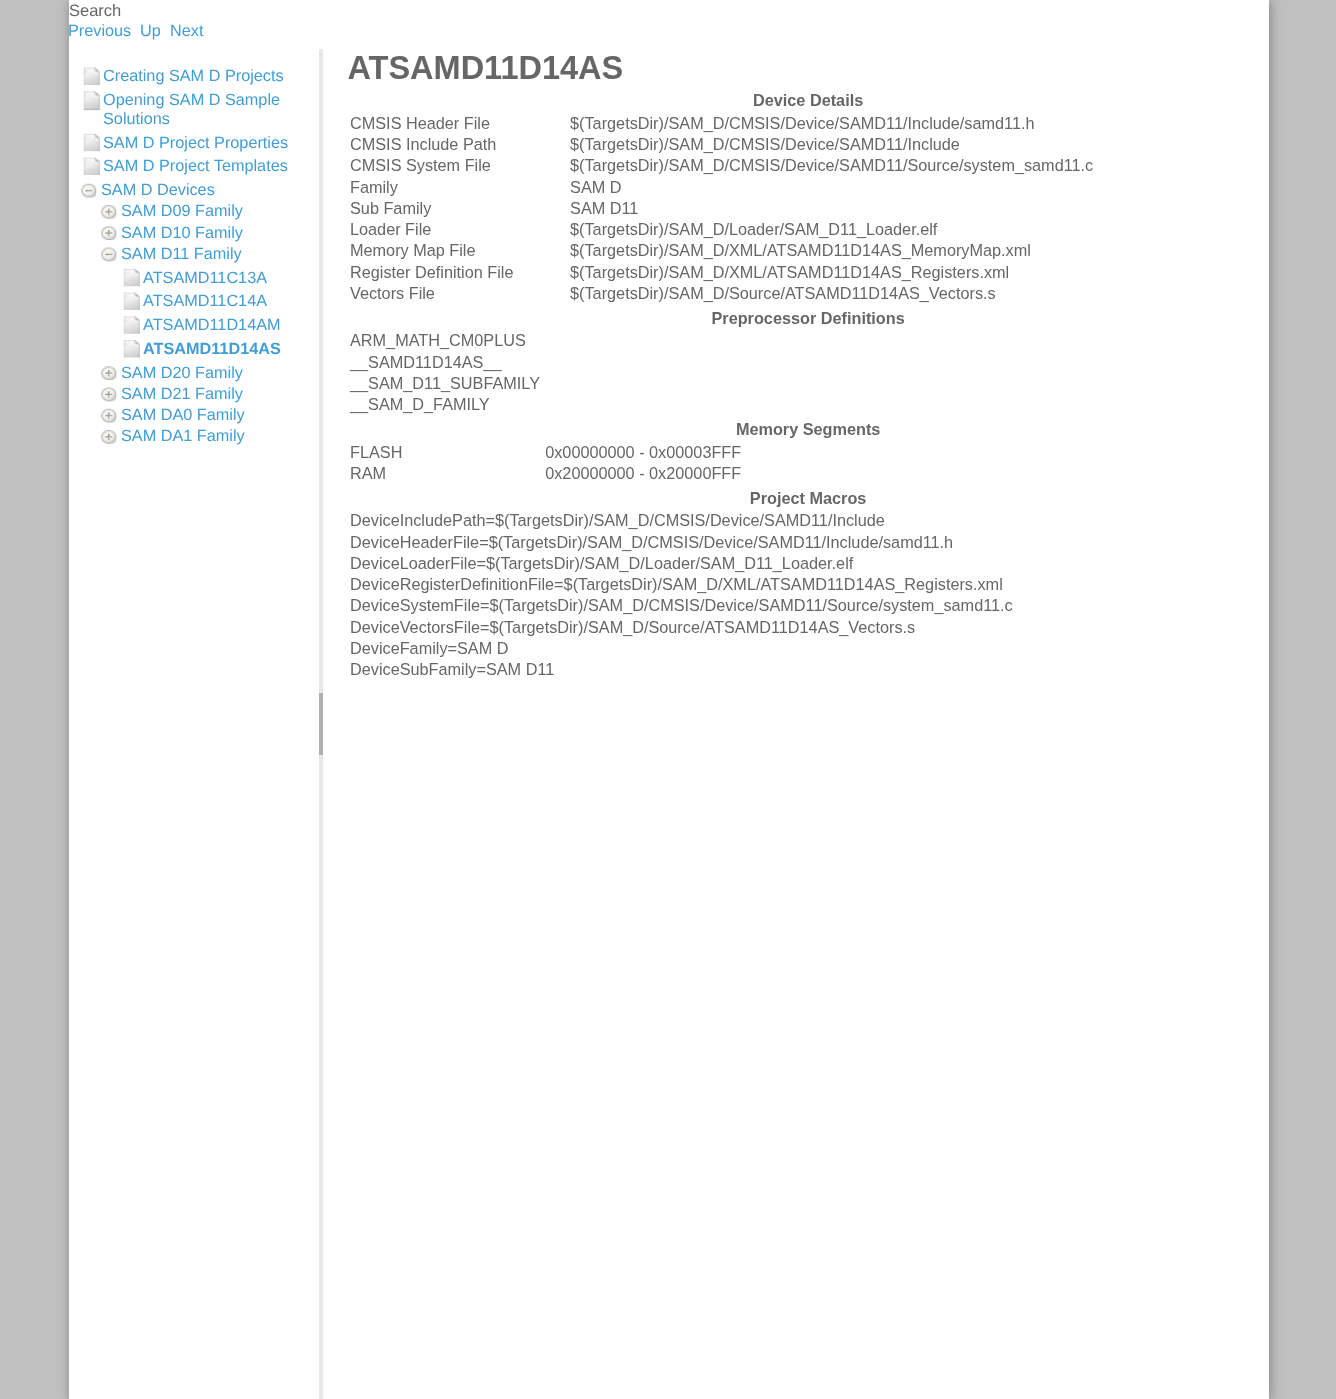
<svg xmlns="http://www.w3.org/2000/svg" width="1336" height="1399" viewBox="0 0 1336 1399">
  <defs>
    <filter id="blur1" x="-50%" y="-200%" width="200%" height="500%"><feGaussianBlur stdDeviation="6"/></filter>
  </defs>
  <rect width="100%" height="100%" fill="#c0c0c0"/>
  <rect x="70" y="1" width="1200" height="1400" fill="#808080" filter="url(#blur1)"/>
  <rect x="69" y="0" width="1200" height="1399" fill="#ffffff"/>
  <text x="69" y="16" font-family="Liberation Sans" font-size="16.5" fill="#666666">Search</text>
  <text x="68" y="36" font-family="Liberation Sans" font-size="16.25" fill="#419dd5">Previous</text>
  <text x="140" y="36" font-family="Liberation Sans" font-size="16.25" fill="#419dd5">Up</text>
  <text x="170" y="36" font-family="Liberation Sans" font-size="16.25" fill="#419dd5">Next</text>
  <image x="83" y="67" width="17" height="18" href="img1.png"/>
  <text x="103" y="81" font-family="Liberation Sans" font-size="16.25" fill="#419dd5">Creating SAM D Projects</text>
  <image x="83" y="91" width="18" height="20" href="img2.png"/>
  <text x="103" y="105" font-family="Liberation Sans" font-size="16.25" fill="#419dd5">Opening SAM D Sample</text>
  <text x="103" y="124" font-family="Liberation Sans" font-size="16.25" fill="#419dd5">Solutions</text>
  <image x="83" y="133" width="17" height="19" href="img3.png"/>
  <text x="103" y="148" font-family="Liberation Sans" font-size="16.25" fill="#419dd5">SAM D Project Properties</text>
  <image x="83" y="157" width="17" height="18" href="img1.png"/>
  <text x="103" y="171" font-family="Liberation Sans" font-size="16.25" fill="#419dd5">SAM D Project Templates</text>
  <image x="81" y="183" width="16" height="15" href="img4.png"/>
  <text x="101" y="195" font-family="Liberation Sans" font-size="16.25" fill="#419dd5">SAM D Devices</text>
  <image x="101" y="205" width="16" height="14" href="img5.png"/>
  <text x="121" y="216" font-family="Liberation Sans" font-size="16.25" fill="#419dd5">SAM D09 Family</text>
  <image x="101" y="226" width="16" height="14" href="img6.png"/>
  <text x="121" y="238" font-family="Liberation Sans" font-size="16.25" fill="#419dd5">SAM D10 Family</text>
  <image x="101" y="247" width="16" height="15" href="img7.png"/>
  <text x="121" y="259" font-family="Liberation Sans" font-size="16.25" fill="#419dd5">SAM D11 Family</text>
  <image x="123" y="268" width="17" height="19" href="img3.png"/>
  <text x="143" y="283" font-family="Liberation Sans" font-size="16.25" fill="#419dd5">ATSAMD11C13A</text>
  <image x="123" y="292" width="17" height="18" href="img8.png"/>
  <text x="143" y="306" font-family="Liberation Sans" font-size="16.25" fill="#419dd5">ATSAMD11C14A</text>
  <image x="123" y="316" width="17" height="18" href="img9.png"/>
  <text x="143" y="330" font-family="Liberation Sans" font-size="16.25" fill="#419dd5">ATSAMD11D14AM</text>
  <image x="123" y="340" width="17" height="18" href="img10.png"/>
  <text x="143" y="354" font-family="Liberation Sans" font-size="16.25" font-weight="bold" fill="#419dd5">ATSAMD11D14AS</text>
  <image x="101" y="366" width="16" height="14" href="img6.png"/>
  <text x="121" y="378" font-family="Liberation Sans" font-size="16.25" fill="#419dd5">SAM D20 Family</text>
  <image x="101" y="387" width="16" height="15" href="img11.png"/>
  <text x="121" y="399" font-family="Liberation Sans" font-size="16.25" fill="#419dd5">SAM D21 Family</text>
  <image x="101" y="408" width="16" height="15" href="img12.png"/>
  <text x="121" y="420" font-family="Liberation Sans" font-size="16.25" fill="#419dd5">SAM DA0 Family</text>
  <image x="101" y="430" width="16" height="14" href="img5.png"/>
  <text x="121" y="441" font-family="Liberation Sans" font-size="16.25" fill="#419dd5">SAM DA1 Family</text>
  <rect x="319" y="49" width="4" height="1350" fill="#e8e8e8"/>
  <rect x="319" y="693" width="4" height="62" fill="#b0b0b0"/>
  <image x="348" y="56" width="745" height="622" href="img13.png"/>
</svg>
